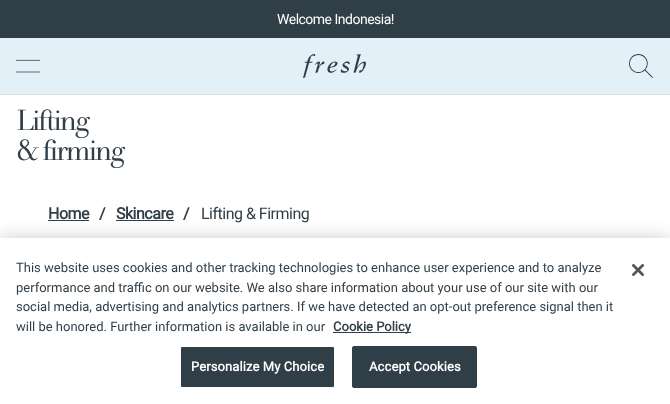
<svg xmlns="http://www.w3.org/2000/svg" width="670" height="404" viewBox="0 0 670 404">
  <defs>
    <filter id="blur1" x="-50%" y="-200%" width="200%" height="500%"><feGaussianBlur stdDeviation="9"/></filter>
  </defs>
  <rect width="100%" height="100%" fill="#ffffff"/>
  <rect x="0" y="0" width="670" height="38" fill="#303e48"/>
  <text x="277" y="24" font-family="Roboto" font-size="14" letter-spacing="-0.5" fill="#ffffff">Welcome Indonesia!</text>
  <rect x="0" y="94" width="670" height="1" fill="#dddddd"/>
  <rect x="0" y="38" width="670" height="56" fill="#e3f0f8"/>
  <image x="16" y="59" width="24" height="14" href="img1.png"/>
  <image x="303" y="54" width="63" height="24" href="img2.png"/>
  <image x="629" y="54" width="24" height="24" href="img3.png"/>
  <text x="16" y="130" font-family="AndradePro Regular" font-size="30" letter-spacing="-2" fill="#303e48">Lifting</text>
  <text x="16" y="160" font-family="AndradePro Regular" font-size="30" letter-spacing="-2" fill="#303e48">&amp; firming</text>
  <text x="48" y="219" font-family="Roboto" font-size="16" font-weight="bold" letter-spacing="-0.5" fill="#303e48">Home</text>
  <rect x="48" y="220" width="41" height="1" fill="#303e48"/>
  <text x="99" y="219" font-family="Roboto" font-size="16" font-weight="bold" letter-spacing="-0.5" fill="#303e48">/</text>
  <text x="116" y="219" font-family="Roboto" font-size="16" font-weight="bold" letter-spacing="-0.5" fill="#303e48">Skincare</text>
  <rect x="116" y="220" width="58" height="1" fill="#303e48"/>
  <text x="183" y="219" font-family="Roboto" font-size="16" font-weight="bold" letter-spacing="-0.5" fill="#303e48">/</text>
  <text x="201" y="219" font-family="Roboto" font-size="16" letter-spacing="-0.5" fill="#303e48">Lifting &amp; Firming</text>
  <rect x="0" y="238" width="670" height="166" fill="#000000" fill-opacity="0.2" filter="url(#blur1)"/>
  <rect x="0" y="238" width="670" height="166" fill="#ffffff"/>
  <text x="16" y="272" font-family="Roboto" font-size="13" fill="#303e48">This website uses cookies and other tracking technologies to enhance user experience and to analyze</text>
  <text x="16" y="292" font-family="Roboto" font-size="13" fill="#303e48">performance and traffic on our website. We also share information about your use of our site with our</text>
  <text x="16" y="311" font-family="Roboto" font-size="13" fill="#303e48">social media, advertising and analytics partners. If we have detected an opt-out preference signal then it</text>
  <text x="16" y="331" font-family="Roboto" font-size="13" fill="#303e48">will be honored. Further information is available in our</text>
  <rect x="333" y="332" width="78" height="1" fill="#303e48"/>
  <text x="333" y="331" font-family="Roboto" font-size="13" font-weight="bold" fill="#303e48">Cookie Policy</text>
  <rect x="180.5" y="346.5" width="154" height="41" rx="1.5" fill="#303e48" stroke="#ffffff"/>
  <text x="191" y="371" font-family="Roboto" font-size="13" font-weight="bold" letter-spacing="0.1" fill="#ffffff">Personalize My Choice</text>
  <rect x="352.5" y="346.5" width="124" height="41" rx="1.5" fill="#303e48" stroke="#303e48"/>
  <text x="369" y="371" font-family="Roboto" font-size="13" font-weight="bold" letter-spacing="0.1" fill="#ffffff">Accept Cookies</text>
  <image x="632" y="264" width="12" height="12" href="img4.png"/>
</svg>
